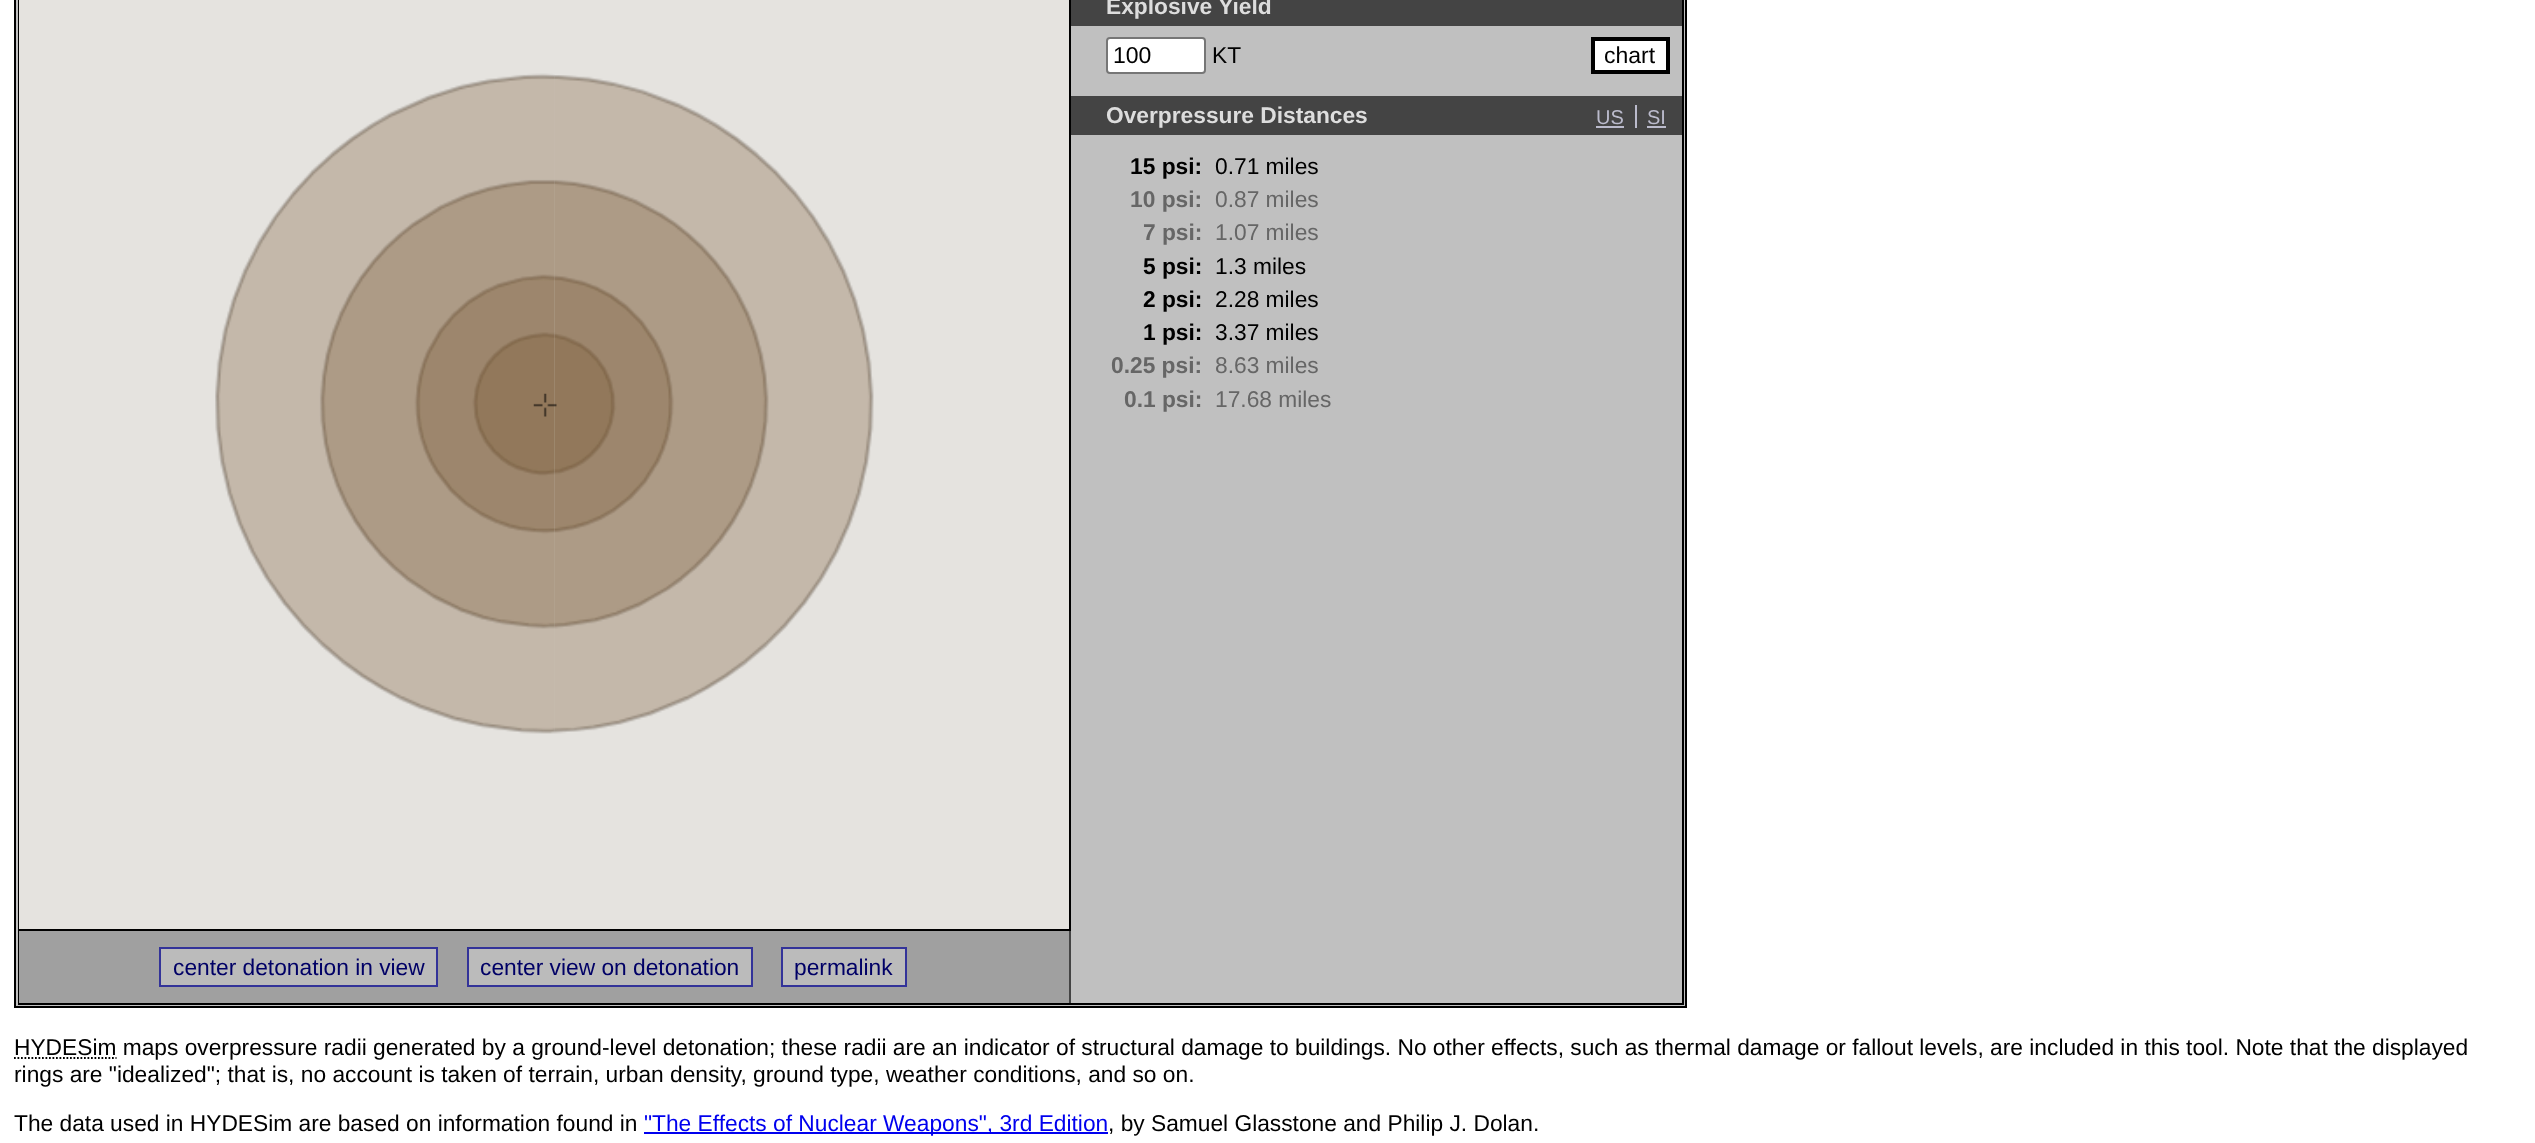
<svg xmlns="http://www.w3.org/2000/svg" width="2535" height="1143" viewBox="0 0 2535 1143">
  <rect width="100%" height="100%" fill="#ffffff"/>
  <rect x="15" y="-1" width="1671" height="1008" fill="#c0c0c0" stroke="#000000" stroke-width="2"/>
  <rect x="19" y="-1" width="1664" height="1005" fill="none" stroke="#000000" stroke-width="2"/>
  <rect x="1069" y="0" width="2" height="931" fill="#000000"/>
  <rect x="19" y="929" width="1052" height="2" fill="#000000"/>
  <rect x="19" y="0" width="1050" height="929" fill="#e5e3df"/>
  <image x="215" y="73" width="340" height="333" href="img1.png"/>
  <image x="554" y="75" width="320" height="331" href="img2.png"/>
  <image x="554" y="406" width="320" height="328" href="img4.png"/>
  <image x="215" y="406" width="340" height="328" href="img3.png"/>
  <image x="533" y="393" width="24" height="24" href="img5.png"/>
  <rect x="1071" y="0" width="611" height="26" fill="#444444"/>
  <text x="1106" y="14" font-family="Liberation Sans" font-size="22.75" font-weight="bold" fill="#dddddd">Explosive Yield</text>
  <rect x="1107" y="38" width="98" height="35" rx="3" fill="#ffffff" stroke="#767676" stroke-width="2"/>
  <text x="1113" y="63" font-family="Liberation Sans" font-size="23" fill="#000000">100</text>
  <text x="1212" y="63" font-family="Liberation Sans" font-size="22.75" fill="#000000">KT</text>
  <rect x="1593" y="39" width="75" height="33" fill="#ffffff" stroke="#000000" stroke-width="4"/>
  <text x="1604" y="63" font-family="Liberation Sans" font-size="23" fill="#000000">chart</text>
  <rect x="1071" y="96" width="611" height="39" fill="#444444"/>
  <text x="1106" y="123" font-family="Liberation Sans" font-size="22.75" font-weight="bold" fill="#dddddd">Overpressure Distances</text>
  <text x="1596" y="124" font-family="Liberation Sans" font-size="20" fill="#bbbbcc">US</text>
  <rect x="1635" y="105" width="2" height="23" fill="#bbbbcc"/>
  <rect x="1596" y="126" width="28" height="2" fill="#bbbbcc"/>
  <text x="1647" y="124" font-family="Liberation Sans" font-size="20" fill="#bbbbcc">SI</text>
  <rect x="1647" y="126" width="19" height="2" fill="#bbbbcc"/>
  <text x="1130" y="174" font-family="Liberation Sans" font-size="22.75" font-weight="bold" fill="#000000">15 psi:</text>
  <text x="1215" y="174" font-family="Liberation Sans" font-size="22.75" fill="#000000">0.71 miles</text>
  <text x="1130" y="207" font-family="Liberation Sans" font-size="22.75" font-weight="bold" fill="#666666">10 psi:</text>
  <text x="1215" y="207" font-family="Liberation Sans" font-size="22.75" fill="#666666">0.87 miles</text>
  <text x="1143" y="240" font-family="Liberation Sans" font-size="22.75" font-weight="bold" fill="#666666">7 psi:</text>
  <text x="1215" y="240" font-family="Liberation Sans" font-size="22.75" fill="#666666">1.07 miles</text>
  <text x="1143" y="274" font-family="Liberation Sans" font-size="22.75" font-weight="bold" fill="#000000">5 psi:</text>
  <text x="1215" y="274" font-family="Liberation Sans" font-size="22.75" fill="#000000">1.3 miles</text>
  <text x="1143" y="307" font-family="Liberation Sans" font-size="22.75" font-weight="bold" fill="#000000">2 psi:</text>
  <text x="1215" y="307" font-family="Liberation Sans" font-size="22.75" fill="#000000">2.28 miles</text>
  <text x="1143" y="340" font-family="Liberation Sans" font-size="22.75" font-weight="bold" fill="#000000">1 psi:</text>
  <text x="1215" y="340" font-family="Liberation Sans" font-size="22.75" fill="#000000">3.37 miles</text>
  <text x="1111" y="373" font-family="Liberation Sans" font-size="22.75" font-weight="bold" fill="#666666">0.25 psi:</text>
  <text x="1215" y="373" font-family="Liberation Sans" font-size="22.75" fill="#666666">8.63 miles</text>
  <text x="1124" y="407" font-family="Liberation Sans" font-size="22.75" font-weight="bold" fill="#666666">0.1 psi:</text>
  <text x="1215" y="407" font-family="Liberation Sans" font-size="22.75" fill="#666666">17.68 miles</text>
  <rect x="19" y="931" width="1050" height="72" fill="#a0a0a0"/>
  <rect x="1069" y="931" width="2" height="72" fill="#444444"/>
  <rect x="160" y="948" width="277" height="38" fill="#bbbbbb" stroke="#333399" stroke-width="2"/>
  <text x="173" y="975" font-family="Liberation Sans" font-size="22.75" fill="#000066">center detonation in view</text>
  <rect x="468" y="948" width="284" height="38" fill="#bbbbbb" stroke="#333399" stroke-width="2"/>
  <text x="480" y="975" font-family="Liberation Sans" font-size="22.75" fill="#000066">center view on detonation</text>
  <rect x="782" y="948" width="124" height="38" fill="#bbbbbb" stroke="#333399" stroke-width="2"/>
  <text x="794" y="975" font-family="Liberation Sans" font-size="22.75" fill="#000066">permalink</text>
  <path d="M14 1058H116.5" fill="none" stroke="#000000" stroke-width="1.8" stroke-dasharray="1.75 1.75"/>
  <text x="14" y="1055" font-family="Liberation Sans" font-size="22.75" fill="#000000">HYDESim maps overpressure radii generated by a ground-level detonation; these radii are an indicator of structural damage to buildings. No other effects, such as thermal damage or fallout levels, are included in this tool. Note that the displayed</text>
  <text x="14" y="1082" font-family="Liberation Sans" font-size="22.75" fill="#000000">rings are "idealized"; that is, no account is taken of terrain, urban density, ground type, weather conditions, and so on.</text>
  <text x="14" y="1131" font-family="Liberation Sans" font-size="22.75" fill="#000000">The data used in HYDESim are based on information found in</text>
  <rect x="644" y="1132" width="464" height="2" fill="#0000ee"/>
  <text x="644" y="1131" font-family="Liberation Sans" font-size="22.75" fill="#0000ee">"The Effects of Nuclear Weapons", 3rd Edition</text>
  <text x="1108" y="1131" font-family="Liberation Sans" font-size="22.75" fill="#000000">, by Samuel Glasstone and Philip J. Dolan.</text>
</svg>
